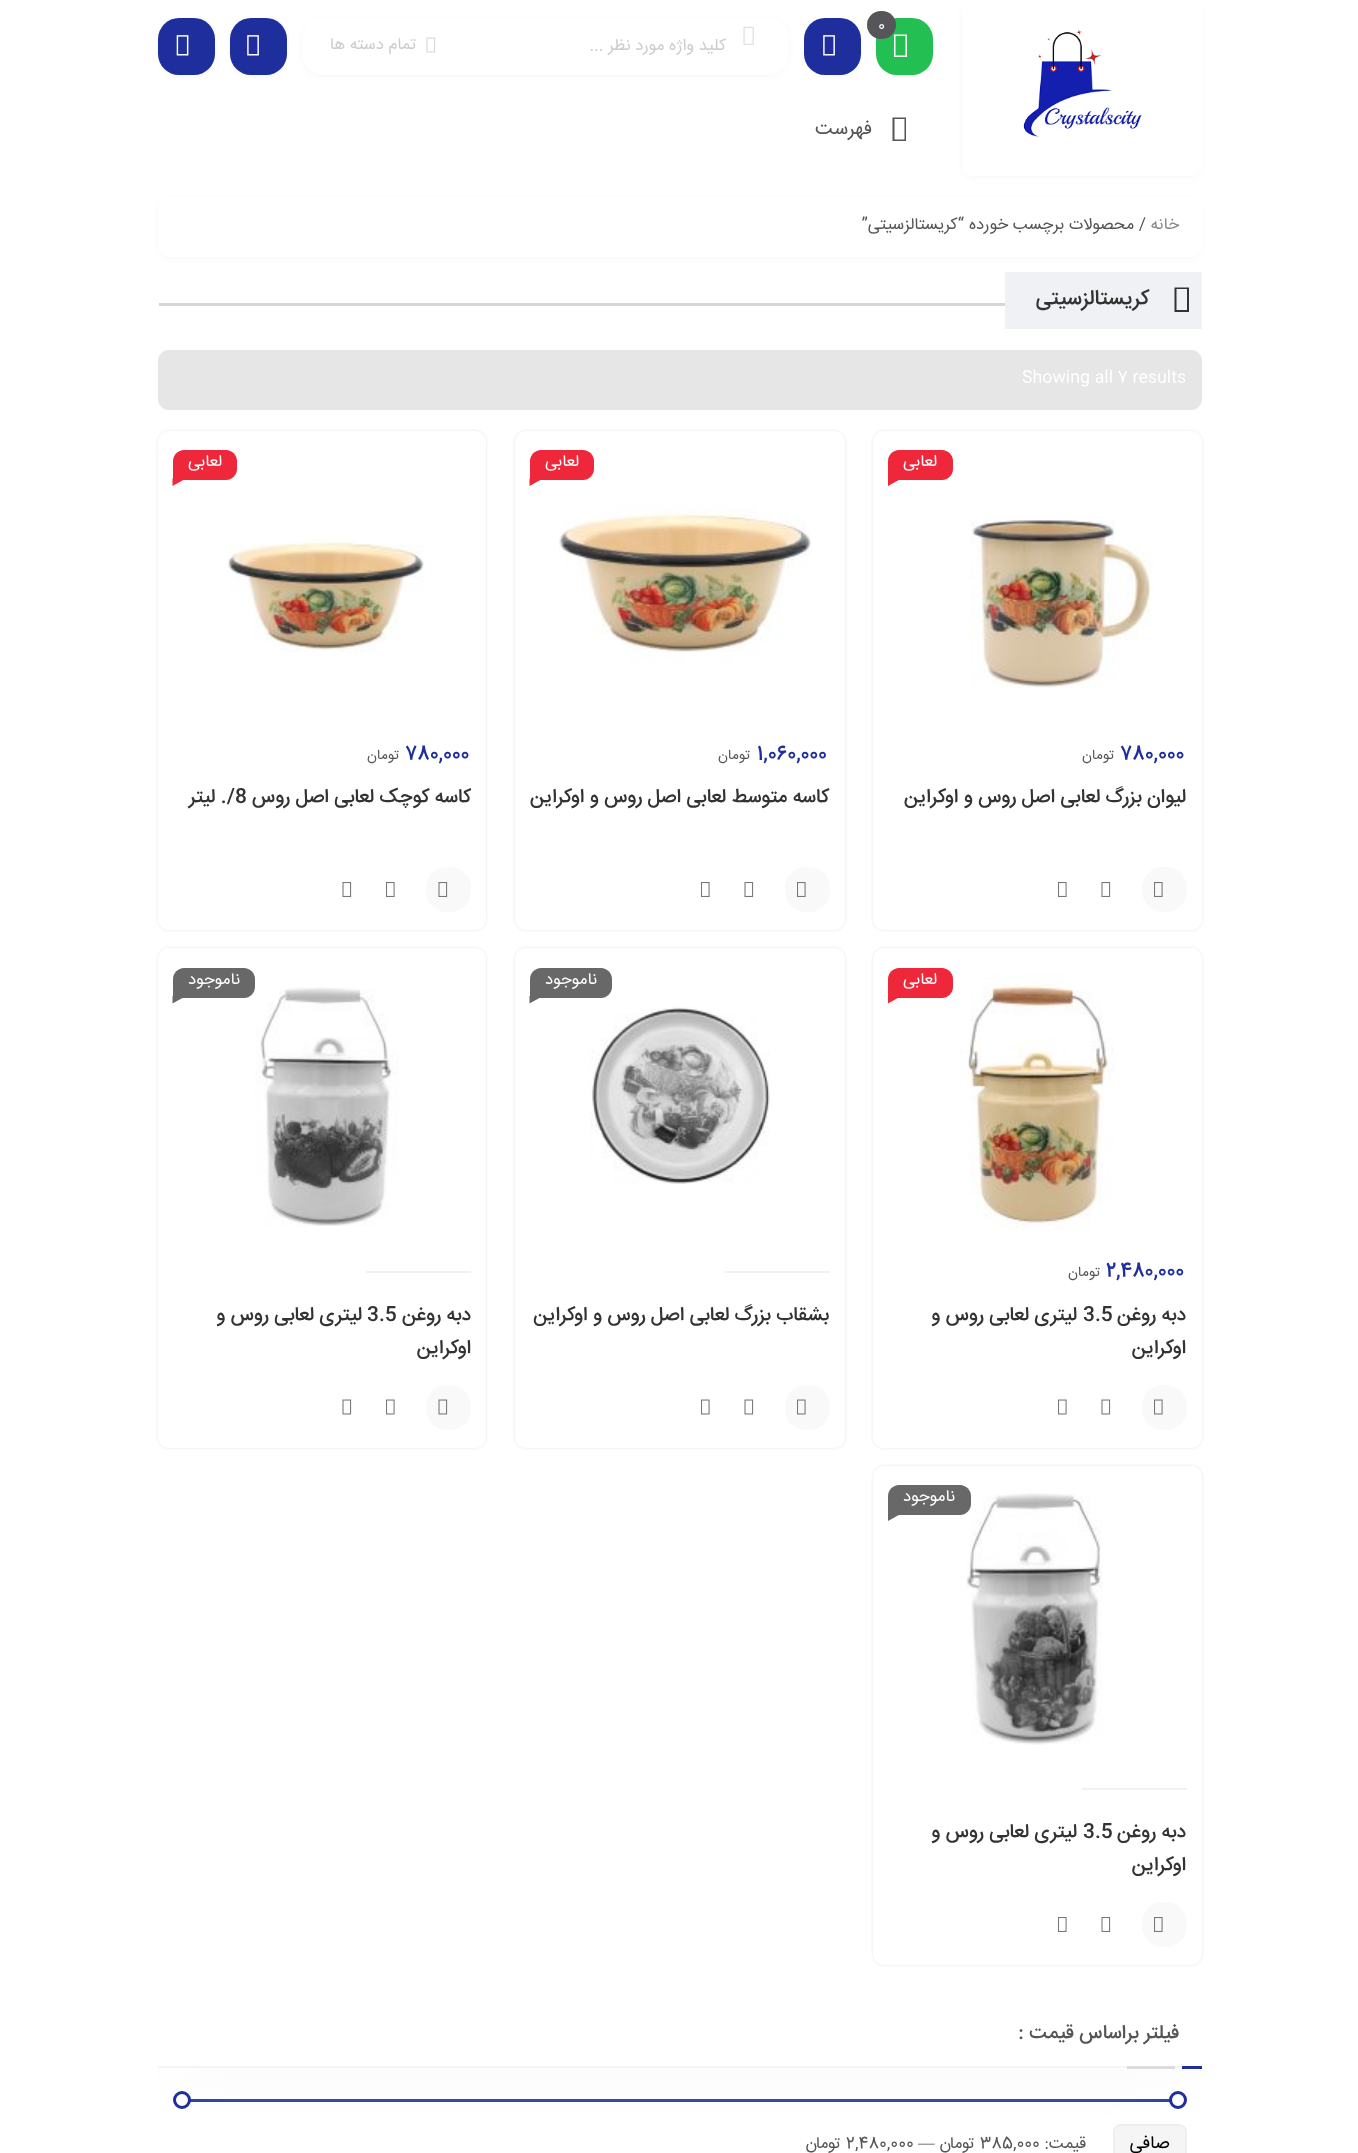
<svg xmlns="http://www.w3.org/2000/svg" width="1358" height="2153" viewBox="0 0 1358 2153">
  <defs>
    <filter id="blur1" x="-50%" y="-200%" width="200%" height="500%"><feGaussianBlur stdDeviation="5"/></filter>
    <filter id="blur2" x="-50%" y="-200%" width="200%" height="500%"><feGaussianBlur stdDeviation="1.5"/></filter>
    <clipPath id="clip1"><rect x="173" y="782" width="298" height="63"/></clipPath>
    <clipPath id="clip2"><rect x="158" y="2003" width="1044" height="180" rx="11"/></clipPath>
    <clipPath id="clip3"><path d="M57 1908H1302V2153H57ZM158 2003H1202V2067H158Z" clip-rule="evenodd"/></clipPath>
    <filter id="blur3" x="-50%" y="-200%" width="200%" height="500%"><feGaussianBlur stdDeviation="37.5"/></filter>
  </defs>
  <rect width="100%" height="100%" fill="#ffffff"/>
  <rect x="966" y="6" width="231" height="167" rx="6" fill="#000000" fill-opacity="0.1" filter="url(#blur1)"/>
  <path d="M962 0H1202V165C1202 171 1197 176 1191 176H973C967 176 962 171 962 165Z" fill="#ffffff"/>
  <image x="1023" y="29" width="119" height="108" href="img1.png"/>
  <rect x="881" y="24" width="48" height="48" rx="17" fill="#000000" fill-opacity="0.1" filter="url(#blur1)"/>
  <rect x="876" y="18" width="57" height="57" rx="21" fill="#23bf53"/>
  <path d="M894 57V34.5H907V57ZM895.5 55.5H905.5V36H895.5Z" fill="#ffffff"/>
  <rect x="809" y="24" width="48" height="48" rx="17" fill="#000000" fill-opacity="0.1" filter="url(#blur1)"/>
  <rect x="867" y="11" width="29" height="28" rx="14" fill="#55555a"/>
  <text x="878" y="30" font-family="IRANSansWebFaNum" font-size="15" fill="#ffffff">0</text>
  <rect x="804" y="18" width="57" height="57" rx="21" fill="#1e2f9d"/>
  <image x="823" y="35" width="12" height="21" href="img2.png"/>
  <rect x="234" y="24" width="48" height="48" rx="17" fill="#000000" fill-opacity="0.1" filter="url(#blur1)"/>
  <rect x="230" y="18" width="57" height="57" rx="21" fill="#1e2f9d"/>
  <image x="247" y="35" width="12" height="21" href="img2.png"/>
  <rect x="162" y="24" width="48" height="48" rx="17" fill="#000000" fill-opacity="0.1" filter="url(#blur1)"/>
  <rect x="158" y="18" width="57" height="57" rx="21" fill="#1e2f9d"/>
  <image x="176" y="35" width="13" height="21" href="img3.png"/>
  <rect x="306" y="24" width="479" height="48" rx="17" fill="#000000" fill-opacity="0.1" filter="url(#blur1)"/>
  <rect x="302" y="18" width="487" height="57" rx="21" fill="#ffffff"/>
  <image x="743" y="26" width="11" height="19" href="img4.png"/>
  <text x="726" y="50" font-family="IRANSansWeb" font-size="16.5" direction="rtl" fill="#cbccd2">کلید واژه مورد نظر ...</text>
  <image x="426" y="37" width="10" height="16" href="img5.png"/>
  <text x="416" y="49" font-family="IRANSansWeb" font-size="16.5" direction="rtl" fill="#cccccc">تمام دسته ها</text>
  <path d="M892.5 141V117.5H906V141ZM894.5 139.5H904.5V119H894.5Z" fill="#55555a"/>
  <text x="872" y="134" font-family="IRANSansWeb" font-size="19.5" direction="rtl" fill="#555555">فهرست</text>
  <rect x="162" y="203" width="1035" height="51" rx="6" fill="#000000" fill-opacity="0.1" filter="url(#blur1)"/>
  <rect x="158" y="197" width="1044" height="60" rx="11" fill="#ffffff"/>
  <text x="1179" y="229" font-family="IRANSansWeb" font-size="16.5" direction="rtl" fill="#888888">خانه</text>
  <text x="1146" y="229" font-family="IRANSansWeb" font-size="16.5" direction="rtl" fill="#555555">/ محصولات برچسب خورده</text>
  <text x="964" y="229" font-family="IRANSansWeb" font-size="16.5" direction="rtl" fill="#555555">“کریستالزسیتی”</text>
  <rect x="1005" y="272" width="197" height="57" fill="#eff1f5"/>
  <path d="M1174.5 312V287.5H1189V312ZM1176.5 310H1187V289H1176.5Z" fill="#333333"/>
  <text x="1149" y="304" font-family="IRANSansWeb" font-size="21" font-weight="500" direction="rtl" fill="#333333">کریستالزسیتی</text>
  <rect x="159" y="303" width="846" height="3" fill="#d6d6d6"/>
  <rect x="158" y="350" width="1044" height="60" rx="11" fill="#e6e6e6"/>
  <text x="1022" y="382" font-family="IRANSansWebFaNum" font-size="16.5" fill="#ffffff">Showing all 7 results</text>
  <rect x="873" y="431" width="329" height="499" rx="11" fill="#000000" fill-opacity="0.1" filter="url(#blur2)"/>
  <rect x="873" y="431" width="329" height="499" rx="11" fill="#ffffff"/>
  <path d="M899 450H942C948 450 953 455 953 461V469C953 475 948 480 942 480H888V461C888 455 893 450 899 450Z" fill="#ee273a"/>
  <text x="937" y="466" font-family="IRANSansWeb" font-size="16.5" direction="rtl" fill="#ffffff">لعابی</text>
  <path d="M888 478.5H901.5L888 486Z" fill="#ee273a"/>
  <image x="970" y="520" width="184" height="168" href="img6.png"/>
  <text x="1120" y="759" font-family="IRANSansWebFaNum" font-size="19.5" font-weight="500" letter-spacing="-0.25" fill="#1e2f9d">780,000</text>
  <text x="1114" y="759" font-family="IRANSansWebFaNum" font-size="14" letter-spacing="-0.25" direction="rtl" fill="#555555">تومان</text>
  <text x="1186" y="802" font-family="IRANSansWeb" font-size="19.5" font-weight="500" direction="rtl" fill="#333333">لیوان بزرگ لعابی اصل روس و اوکراین</text>
  <rect x="1142" y="867" width="45" height="45" rx="21" fill="#f9f9f9"/>
  <image x="1154" y="882" width="9" height="15" href="img7.png"/>
  <image x="1101" y="882" width="10" height="15" href="img8.png"/>
  <image x="1058" y="882" width="9" height="15" href="img9.png"/>
  <rect x="515" y="431" width="330" height="499" rx="11" fill="#000000" fill-opacity="0.1" filter="url(#blur2)"/>
  <rect x="515" y="431" width="330" height="499" rx="11" fill="#ffffff"/>
  <path d="M541 450H583C589 450 594 455 594 461V469C594 475 589 480 583 480H530V461C530 455 535 450 541 450Z" fill="#ee273a"/>
  <text x="579" y="466" font-family="IRANSansWeb" font-size="16.5" direction="rtl" fill="#ffffff">لعابی</text>
  <path d="M529.5 478.5H543L529.5 486Z" fill="#ee273a"/>
  <image x="559" y="503" width="253" height="161" href="img10.png"/>
  <text x="757" y="759" font-family="IRANSansWebFaNum" font-size="19.5" font-weight="500" letter-spacing="-0.25" fill="#1e2f9d">1,060,000</text>
  <text x="750" y="759" font-family="IRANSansWebFaNum" font-size="14" letter-spacing="-0.25" direction="rtl" fill="#555555">تومان</text>
  <text x="829" y="802" font-family="IRANSansWeb" font-size="19.5" font-weight="500" direction="rtl" fill="#333333">کاسه متوسط لعابی اصل روس و اوکراین</text>
  <rect x="785" y="867" width="45" height="45" rx="21" fill="#f9f9f9"/>
  <image x="797" y="882" width="9" height="15" href="img7.png"/>
  <image x="744" y="882" width="10" height="15" href="img8.png"/>
  <image x="701" y="882" width="9" height="15" href="img9.png"/>
  <rect x="158" y="431" width="328" height="499" rx="11" fill="#000000" fill-opacity="0.1" filter="url(#blur2)"/>
  <rect x="158" y="431" width="328" height="499" rx="11" fill="#ffffff"/>
  <path d="M184 450H226C232 450 237 455 237 461V469C237 475 232 480 226 480H173V461C173 455 178 450 184 450Z" fill="#ee273a"/>
  <text x="222" y="466" font-family="IRANSansWeb" font-size="16.5" direction="rtl" fill="#ffffff">لعابی</text>
  <path d="M172.5 478.5H186L172.5 486Z" fill="#ee273a"/>
  <image x="228" y="539" width="196" height="114" href="img11.png"/>
  <text x="405" y="759" font-family="IRANSansWebFaNum" font-size="19.5" font-weight="500" letter-spacing="-0.25" fill="#1e2f9d">780,000</text>
  <text x="399" y="759" font-family="IRANSansWebFaNum" font-size="14" letter-spacing="-0.25" direction="rtl" fill="#555555">تومان</text>
  <g clip-path="url(#clip1)">
    <text x="471" y="802" font-family="IRANSansWeb" font-size="19.5" font-weight="500" direction="rtl" fill="#333333">کاسه کوچک لعابی اصل روس</text>
  </g>
  <text x="235" y="802" font-family="IRANSansWeb" font-size="19.5" font-weight="500" fill="#333333">8</text>
  <text x="235" y="802" font-family="IRANSansWeb" font-size="19.5" font-weight="500" direction="rtl" fill="#333333">/. لیتر</text>
  <rect x="426" y="867" width="45" height="45" rx="21" fill="#f9f9f9"/>
  <image x="438" y="882" width="10" height="15" href="img12.png"/>
  <image x="386" y="882" width="9" height="15" href="img9.png"/>
  <image x="342" y="882" width="10" height="15" href="img8.png"/>
  <rect x="873" y="948" width="329" height="500" rx="11" fill="#000000" fill-opacity="0.1" filter="url(#blur2)"/>
  <rect x="873" y="948" width="329" height="500" rx="11" fill="#ffffff"/>
  <image x="960" y="973" width="155" height="258" href="img13.png"/>
  <path d="M899 968H942C948 968 953 973 953 979V987C953 993 948 998 942 998H888V979C888 973 893 968 899 968Z" fill="#ee273a"/>
  <text x="937" y="984" font-family="IRANSansWeb" font-size="16.5" direction="rtl" fill="#ffffff">لعابی</text>
  <path d="M888 996H901.5L888 1003.5Z" fill="#ee273a"/>
  <text x="1106" y="1276" font-family="IRANSansWebFaNum" font-size="19.5" font-weight="500" letter-spacing="-0.25" fill="#1e2f9d">2,480,000</text>
  <text x="1100" y="1276" font-family="IRANSansWebFaNum" font-size="14" letter-spacing="-0.25" direction="rtl" fill="#555555">تومان</text>
  <text x="1186" y="1320" font-family="IRANSansWeb" font-size="19.5" font-weight="500" direction="rtl" fill="#333333">دبه روغن</text>
  <text x="1083" y="1320" font-family="IRANSansWeb" font-size="19.5" font-weight="500" fill="#333333">3.5</text>
  <text x="1077" y="1320" font-family="IRANSansWeb" font-size="19.5" font-weight="500" direction="rtl" fill="#333333">لیتری لعابی روس و</text>
  <text x="1186" y="1353" font-family="IRANSansWeb" font-size="19.5" font-weight="500" direction="rtl" fill="#333333">اوکراین</text>
  <rect x="1142" y="1385" width="45" height="45" rx="21" fill="#f9f9f9"/>
  <image x="1154" y="1399" width="9" height="16" href="img14.png"/>
  <image x="1101" y="1399" width="10" height="16" href="img15.png"/>
  <image x="1058" y="1399" width="9" height="16" href="img16.png"/>
  <rect x="515" y="948" width="330" height="500" rx="11" fill="#000000" fill-opacity="0.1" filter="url(#blur2)"/>
  <rect x="515" y="948" width="330" height="500" rx="11" fill="#ffffff"/>
  <path d="M541 968H601C607 968 612 973 612 979V987C612 993 607 998 601 998H530V979C530 973 535 968 541 968Z" fill="#686868"/>
  <text x="597" y="984" font-family="IRANSansWeb" font-size="16.5" direction="rtl" fill="#ffffff">ناموجود</text>
  <path d="M529.5 996H543L529.5 1003.5Z" fill="#686868"/>
  <image x="589" y="1007" width="181" height="178" href="img17.png"/>
  <rect x="725" y="1271" width="105" height="2" fill="#f1f1f1"/>
  <text x="829" y="1320" font-family="IRANSansWeb" font-size="19.5" font-weight="500" direction="rtl" fill="#333333">بشقاب بزرگ لعابی اصل روس و اوکراین</text>
  <rect x="785" y="1385" width="45" height="45" rx="21" fill="#f9f9f9"/>
  <image x="797" y="1399" width="9" height="16" href="img14.png"/>
  <image x="744" y="1399" width="10" height="16" href="img15.png"/>
  <image x="701" y="1399" width="9" height="16" href="img16.png"/>
  <rect x="158" y="948" width="328" height="500" rx="11" fill="#000000" fill-opacity="0.1" filter="url(#blur2)"/>
  <rect x="158" y="948" width="328" height="500" rx="11" fill="#ffffff"/>
  <path d="M184 968H244C250 968 255 973 255 979V987C255 993 250 998 244 998H173V979C173 973 178 968 184 968Z" fill="#686868"/>
  <text x="240" y="984" font-family="IRANSansWeb" font-size="16.5" direction="rtl" fill="#ffffff">ناموجود</text>
  <path d="M172.5 996H186L172.5 1003.5Z" fill="#686868"/>
  <image x="255" y="987" width="144" height="240" href="img18.png"/>
  <rect x="366" y="1271" width="105" height="2" fill="#f1f1f1"/>
  <text x="471" y="1320" font-family="IRANSansWeb" font-size="19.5" font-weight="500" direction="rtl" fill="#333333">دبه روغن</text>
  <text x="367" y="1320" font-family="IRANSansWeb" font-size="19.5" font-weight="500" fill="#333333">3.5</text>
  <text x="362" y="1320" font-family="IRANSansWeb" font-size="19.5" font-weight="500" direction="rtl" fill="#333333">لیتری لعابی روس و</text>
  <text x="471" y="1353" font-family="IRANSansWeb" font-size="19.5" font-weight="500" direction="rtl" fill="#333333">اوکراین</text>
  <rect x="426" y="1385" width="45" height="45" rx="21" fill="#f9f9f9"/>
  <image x="438" y="1399" width="10" height="16" href="img19.png"/>
  <image x="386" y="1399" width="9" height="16" href="img16.png"/>
  <image x="342" y="1399" width="10" height="16" href="img15.png"/>
  <rect x="873" y="1466" width="329" height="499" rx="11" fill="#000000" fill-opacity="0.1" filter="url(#blur2)"/>
  <rect x="873" y="1466" width="329" height="499" rx="11" fill="#ffffff"/>
  <image x="966" y="1493" width="137" height="252" href="img20.png"/>
  <path d="M899 1485H960C966 1485 971 1490 971 1496V1504C971 1510 966 1515 960 1515H888V1496C888 1490 893 1485 899 1485Z" fill="#686868"/>
  <text x="955" y="1501" font-family="IRANSansWeb" font-size="16.5" direction="rtl" fill="#ffffff">ناموجود</text>
  <path d="M888 1513.5H901.5L888 1521Z" fill="#686868"/>
  <rect x="1082" y="1788" width="105" height="2" fill="#f1f1f1"/>
  <text x="1186" y="1837" font-family="IRANSansWeb" font-size="19.5" font-weight="500" direction="rtl" fill="#333333">دبه روغن</text>
  <text x="1083" y="1837" font-family="IRANSansWeb" font-size="19.5" font-weight="500" fill="#333333">3.5</text>
  <text x="1077" y="1837" font-family="IRANSansWeb" font-size="19.5" font-weight="500" direction="rtl" fill="#333333">لیتری لعابی روس و</text>
  <text x="1186" y="1870" font-family="IRANSansWeb" font-size="19.5" font-weight="500" direction="rtl" fill="#333333">اوکراین</text>
  <rect x="1142" y="1902" width="45" height="45" rx="21" fill="#f9f9f9"/>
  <image x="1154" y="1917" width="9" height="15" href="img7.png"/>
  <image x="1101" y="1917" width="10" height="15" href="img8.png"/>
  <image x="1058" y="1917" width="9" height="15" href="img9.png"/>
  <rect x="182" y="2099" width="996" height="3" fill="#1e2f9d"/>
  <rect x="1114" y="2125" width="72" height="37" rx="7" fill="#f5f5f5" stroke="#eeeeee" stroke-width="2"/>
  <g clip-path="url(#clip2)">
    <g clip-path="url(#clip3)">
      <rect x="171" y="2022" width="1017" height="38" fill="#f5f5f5" filter="url(#blur3)"/>
    </g>
  </g>
  <rect x="158" y="2066" width="1024" height="2" fill="#f5f5f5"/>
  <text x="1179" y="2038" font-family="IRANSansWeb" font-size="19.5" font-weight="500" direction="rtl" fill="#555555">فیلتر براساس قیمت :</text>
  <rect x="1182" y="2066" width="20" height="3" fill="#1e2f9d"/>
  <rect x="1127" y="2066" width="48" height="3" fill="#dcdcdc"/>
  <circle cx="1178" cy="2100" r="7.5" fill="#ffffff" stroke="#1e2f9d" stroke-width="3"/>
  <circle cx="182" cy="2100" r="7.5" fill="#ffffff" stroke="#1e2f9d" stroke-width="3"/>
  <text x="1170" y="2148" font-family="IRANSansWeb" font-size="18" direction="rtl" fill="#000000">صافی</text>
  <text x="1086" y="2148" font-family="IRANSansWebFaNum" font-size="16.5" direction="rtl" fill="#555555">قيمت:</text>
  <text x="980" y="2148" font-family="IRANSansWebFaNum" font-size="16.5" fill="#555555">385,000</text>
  <text x="975" y="2148" font-family="IRANSansWebFaNum" font-size="16.5" direction="rtl" fill="#555555">تومان</text>
  <text x="918" y="2148" font-family="Liberation Serif" font-size="16.5" fill="#555555">—</text>
  <text x="846" y="2148" font-family="IRANSansWebFaNum" font-size="16.5" fill="#555555">2,480,000</text>
  <text x="841" y="2148" font-family="IRANSansWebFaNum" font-size="16.5" direction="rtl" fill="#555555">تومان</text>
</svg>
